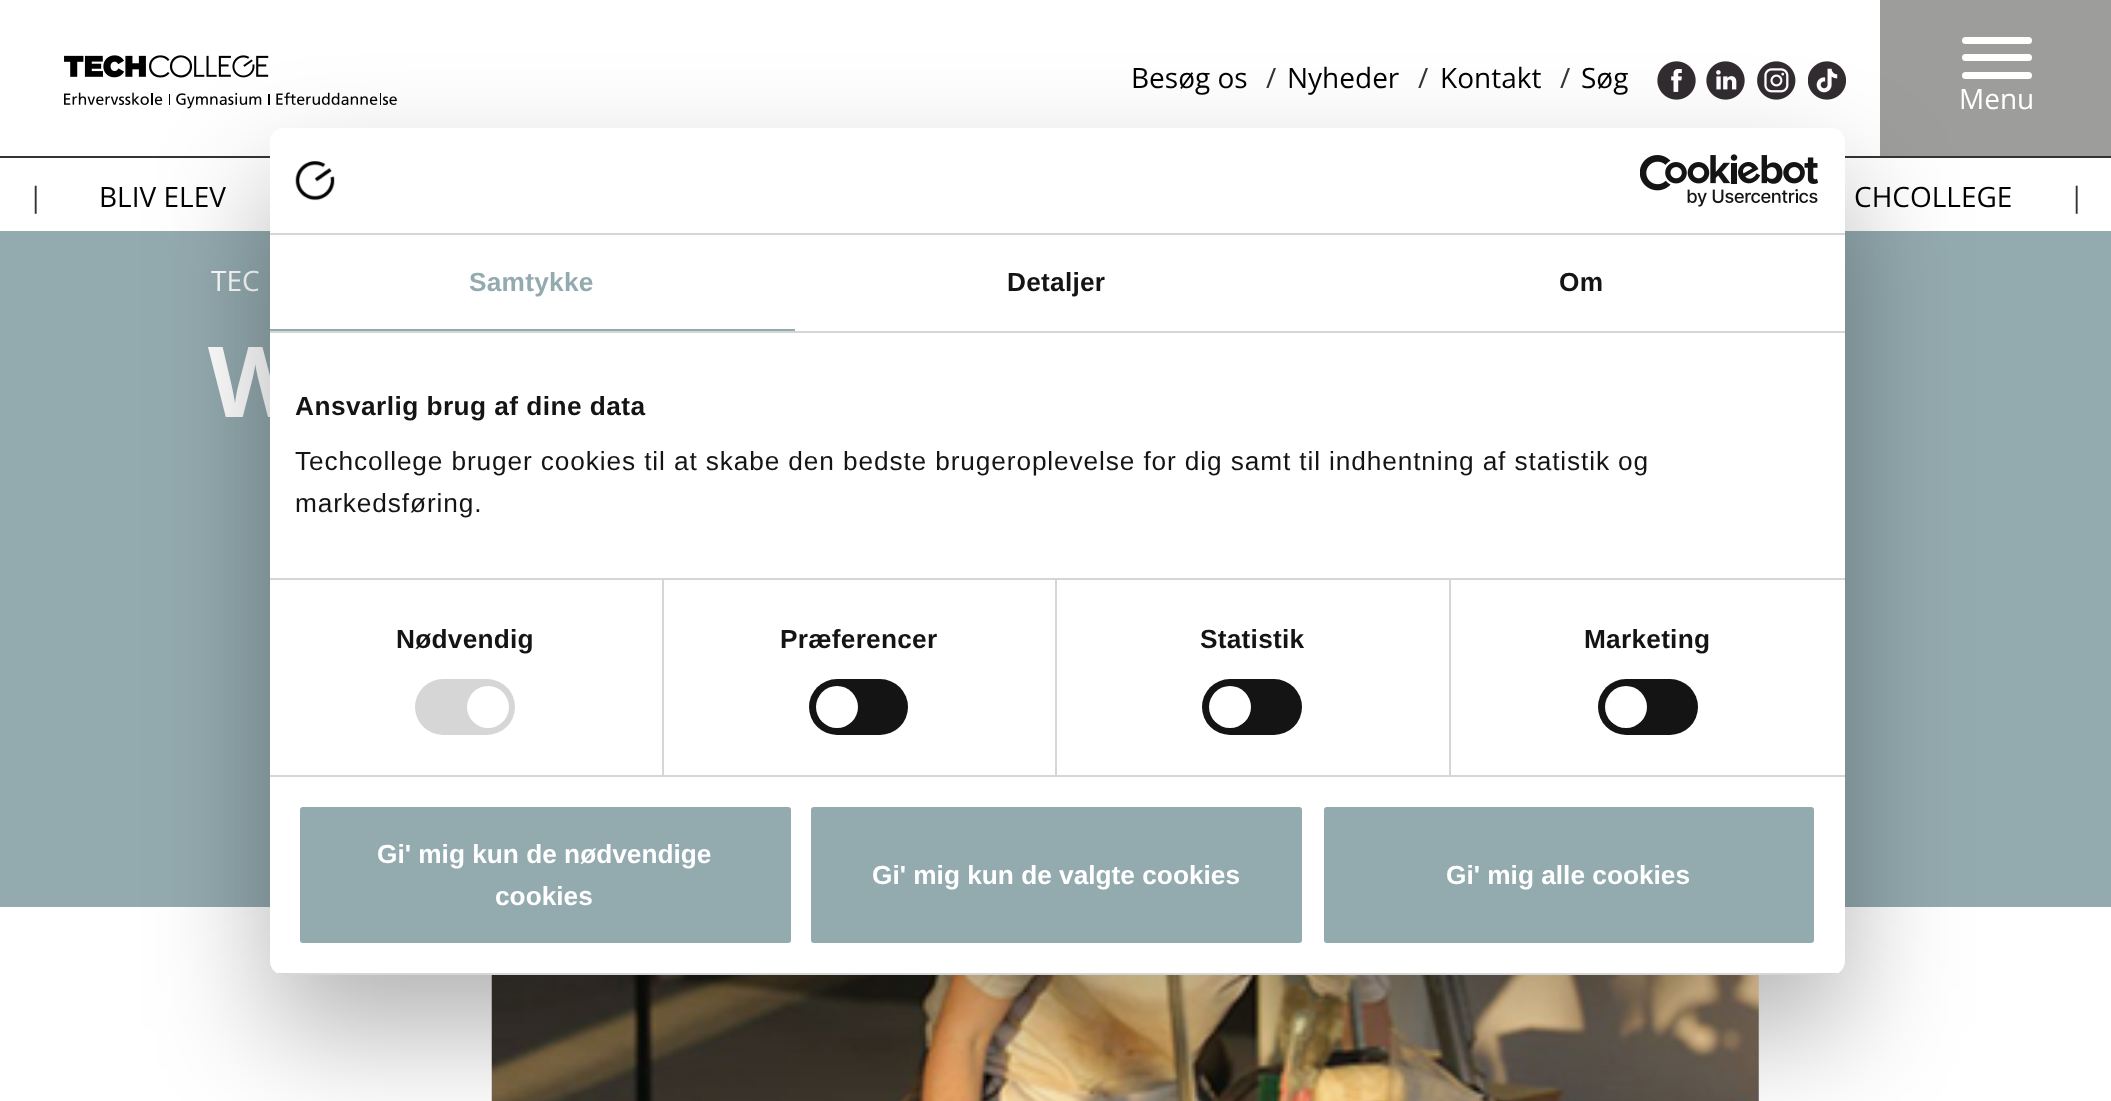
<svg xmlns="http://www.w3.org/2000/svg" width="2111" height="1101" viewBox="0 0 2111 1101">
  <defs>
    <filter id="blur1" x="-50%" y="-200%" width="200%" height="500%"><feGaussianBlur stdDeviation="59.5"/></filter>
    <clipPath id="clip1"><rect x="270" y="128" width="1575" height="847" rx="14"/></clipPath>
  </defs>
  <rect width="100%" height="100%" fill="#ffffff"/>
  <rect x="0" y="156" width="2111" height="2" fill="#343433"/>
  <image x="64" y="55" width="333" height="54" href="img1.png"/>
  <text x="1131" y="88" font-family="Open Sans" font-size="28" fill="#000000">Besøg os</text>
  <text x="1266" y="88" font-family="Open Sans" font-size="28" fill="#333333">/</text>
  <text x="1287" y="88" font-family="Open Sans" font-size="28" fill="#000000">Nyheder</text>
  <text x="1418" y="88" font-family="Open Sans" font-size="28" fill="#333333">/</text>
  <text x="1440" y="88" font-family="Open Sans" font-size="28" fill="#000000">Kontakt</text>
  <text x="1560" y="88" font-family="Open Sans" font-size="28" fill="#333333">/</text>
  <text x="1581" y="88" font-family="Open Sans" font-size="28" fill="#000000">Søg</text>
  <image x="1657" y="61" width="39" height="39" href="img2.png"/>
  <image x="1706" y="61" width="39" height="39" href="img3.png"/>
  <image x="1757" y="61" width="39" height="39" href="img4.png"/>
  <image x="1808" y="61" width="38" height="39" href="img5.png"/>
  <rect x="1880" y="0" width="231" height="156" fill="#9d9d9c"/>
  <rect x="1962" y="54" width="70" height="7" rx="3.5" fill="#ffffff"/>
  <rect x="1962" y="37" width="70" height="7" rx="3.5" fill="#ffffff"/>
  <rect x="1962" y="72" width="70" height="7" rx="3.5" fill="#ffffff"/>
  <text x="1959" y="109" font-family="Open Sans" font-size="28" fill="#ffffff">Menu</text>
  <text x="28" y="207" font-family="Open Sans" font-size="28" fill="#333333">|</text>
  <text x="99" y="207" font-family="Open Sans" font-size="28" fill="#000000">BLIV ELEV</text>
  <text x="1854" y="207" font-family="Open Sans" font-size="28" fill="#000000">CHCOLLEGE</text>
  <text x="2069" y="207" font-family="Open Sans" font-size="28" fill="#333333">|</text>
  <rect x="0" y="231" width="2111" height="252" fill="#93aaaf"/>
  <text x="211" y="291" font-family="Open Sans" font-size="28" fill="#ffffff">TEC</text>
  <text x="208" y="417" font-family="Open Sans" font-size="98" font-weight="bold" fill="#ffffff">W</text>
  <rect x="0" y="483" width="2111" height="424" fill="#93aaaf"/>
  <image x="491" y="975" width="1268" height="126" href="img6.png"/>
  <rect x="270" y="184" width="1575" height="847" rx="14" fill="#000000" fill-opacity="0.3" filter="url(#blur1)"/>
  <rect x="270" y="128" width="1575" height="847" rx="14" fill="#ffffff"/>
  <rect x="270" y="233" width="1575" height="2" fill="#d6d6d6"/>
  <image x="295" y="161" width="40" height="40" href="img7.png"/>
  <image x="1640" y="154" width="178" height="53" href="img8.png"/>
  <rect x="270" y="331" width="1575" height="2" fill="#d6d6d6"/>
  <rect x="270" y="329" width="525" height="2" fill="#93aaaf"/>
  <text x="469" y="291" font-family="Liberation Sans" font-size="26.25" font-weight="bold" letter-spacing="0.25" fill="#93aaaf">Samtykke</text>
  <text x="1007" y="291" font-family="Liberation Sans" font-size="26.25" font-weight="bold" letter-spacing="0.25" fill="#141414">Detaljer</text>
  <text x="1559" y="291" font-family="Liberation Sans" font-size="26.25" font-weight="bold" letter-spacing="0.25" fill="#141414">Om</text>
  <rect x="662" y="579" width="2" height="196" fill="#d6d6d6"/>
  <rect x="1055" y="579" width="2" height="196" fill="#d6d6d6"/>
  <rect x="1449" y="579" width="2" height="196" fill="#d6d6d6"/>
  <rect x="270" y="578" width="1575" height="2" fill="#d6d6d6"/>
  <text x="295" y="415" font-family="Liberation Sans" font-size="26.25" font-weight="bold" letter-spacing="0.45" fill="#141414">Ansvarlig brug af dine data</text>
  <text x="295" y="470" font-family="Liberation Sans" font-size="26.25" letter-spacing="0.88" fill="#141414">Techcollege bruger cookies til at skabe den bedste brugeroplevelse for dig samt til indhentning af statistik og</text>
  <text x="295" y="512" font-family="Liberation Sans" font-size="26.25" letter-spacing="0.88" fill="#141414">markedsføring.</text>
  <rect x="270" y="775" width="1575" height="2" fill="#d6d6d6"/>
  <text x="396" y="648" font-family="Liberation Sans" font-size="26.25" font-weight="bold" letter-spacing="0.25" fill="#141414">Nødvendig</text>
  <rect x="415" y="679" width="100" height="56" rx="28" fill="#d6d6d6"/>
  <circle cx="488" cy="707" r="21" fill="#ffffff"/>
  <text x="780" y="648" font-family="Liberation Sans" font-size="26.25" font-weight="bold" letter-spacing="0.25" fill="#141414">Præferencer</text>
  <rect x="809" y="679" width="99" height="56" rx="28" fill="#141414"/>
  <circle cx="837" cy="707" r="21" fill="#ffffff"/>
  <text x="1200" y="648" font-family="Liberation Sans" font-size="26.25" font-weight="bold" letter-spacing="0.25" fill="#141414">Statistik</text>
  <rect x="1202" y="679" width="100" height="56" rx="28" fill="#141414"/>
  <circle cx="1230" cy="707" r="21" fill="#ffffff"/>
  <text x="1584" y="648" font-family="Liberation Sans" font-size="26.25" font-weight="bold" letter-spacing="0.25" fill="#141414">Marketing</text>
  <rect x="1598" y="679" width="100" height="56" rx="28" fill="#141414"/>
  <circle cx="1626" cy="707" r="21" fill="#ffffff"/>
  <g clip-path="url(#clip1)">
    <rect x="270" y="973" width="1575" height="2" fill="#d6d6d6"/>
  </g>
  <rect x="298" y="805" width="495" height="140" rx="5" fill="#93aaaf" stroke="#ffffff" stroke-width="4"/>
  <text x="377" y="863" font-family="Liberation Sans" font-size="26.25" font-weight="bold" fill="#ffffff">Gi' mig kun de nødvendige</text>
  <text x="495" y="905" font-family="Liberation Sans" font-size="26.25" font-weight="bold" fill="#ffffff">cookies</text>
  <rect x="809" y="805" width="495" height="140" rx="5" fill="#93aaaf" stroke="#ffffff" stroke-width="4"/>
  <text x="872" y="884" font-family="Liberation Sans" font-size="26.25" font-weight="bold" fill="#ffffff">Gi' mig kun de valgte cookies</text>
  <rect x="1322" y="805" width="494" height="140" rx="5" fill="#93aaaf" stroke="#ffffff" stroke-width="4"/>
  <text x="1446" y="884" font-family="Liberation Sans" font-size="26.25" font-weight="bold" fill="#ffffff">Gi' mig alle cookies</text>
</svg>
